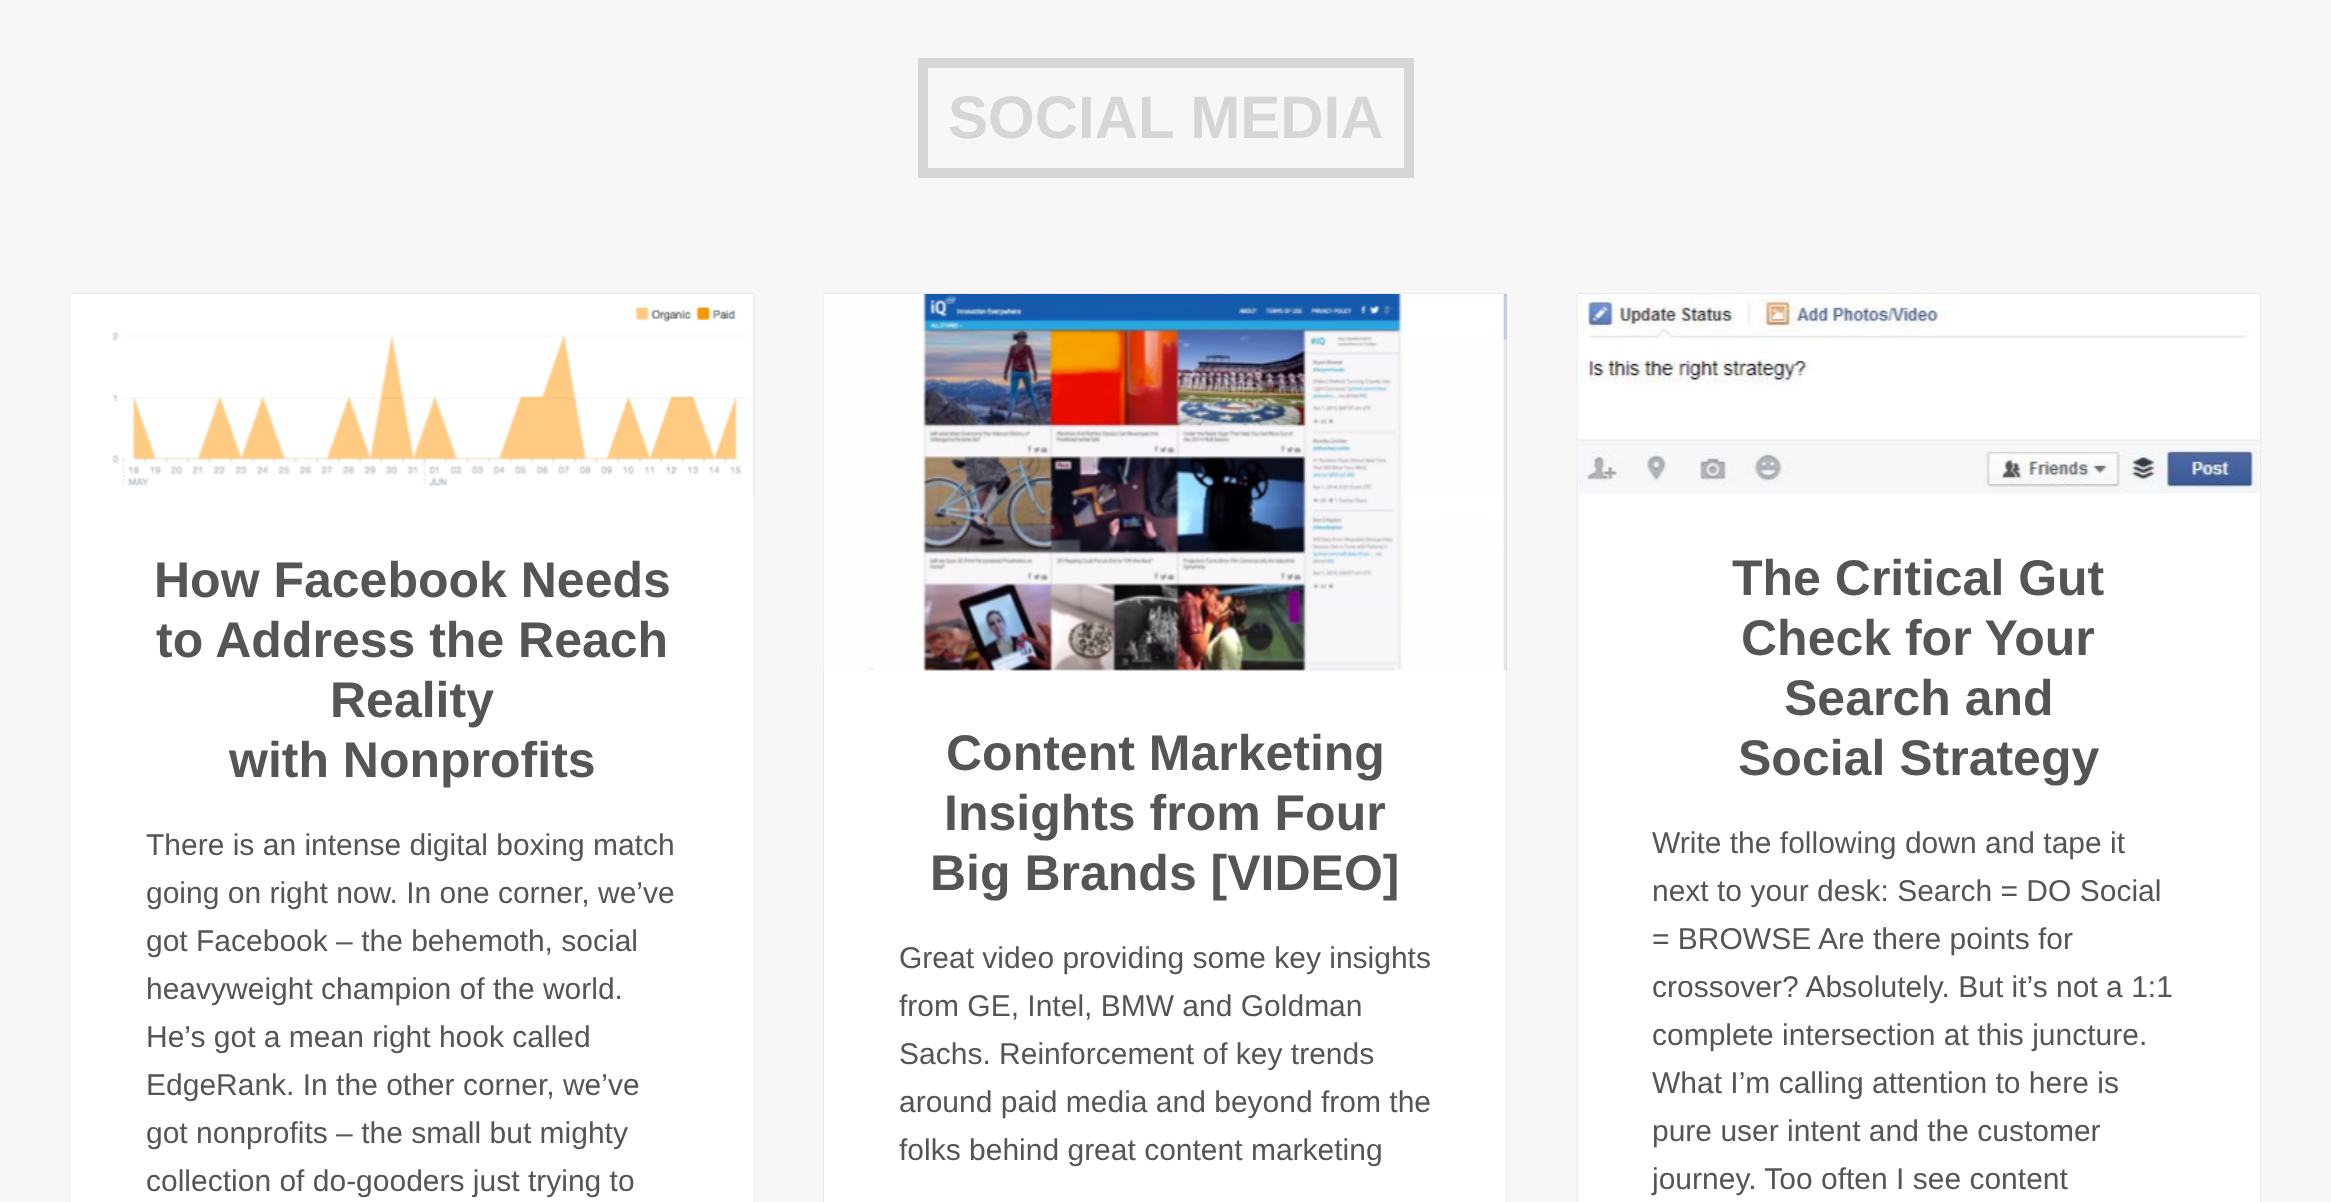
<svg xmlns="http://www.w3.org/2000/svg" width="2331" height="1202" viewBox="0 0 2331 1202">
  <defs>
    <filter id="blur1" x="-50%" y="-200%" width="200%" height="500%"><feGaussianBlur stdDeviation="1"/></filter>
  </defs>
  <rect width="100%" height="100%" fill="#f7f7f7"/>
  <rect x="923" y="63" width="486" height="110" fill="none" stroke="#d6d6d6" stroke-width="10"/>
  <text x="948" y="138" font-family="Arimo" font-size="60" font-weight="bold" fill="#d6d6d6">SOCIAL MEDIA</text>
  <rect x="70" y="294" width="684" height="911" fill="#000000" fill-opacity="0.15" filter="url(#blur1)"/>
  <rect x="70" y="294" width="684" height="908" fill="#ffffff"/>
  <image x="112" y="294" width="642" height="202" href="img1.png"/>
  <text x="154" y="597" font-family="Arimo" font-size="50" font-weight="bold" fill="#555555">How Facebook Needs</text>
  <text x="156" y="657" font-family="Arimo" font-size="50" font-weight="bold" fill="#555555">to Address the Reach</text>
  <text x="330" y="717" font-family="Arimo" font-size="50" font-weight="bold" fill="#555555">Reality</text>
  <text x="229" y="777" font-family="Arimo" font-size="50" font-weight="bold" fill="#555555">with Nonprofits</text>
  <text x="146" y="855" font-family="Liberation Sans" font-size="30" fill="#555555">There is an intense digital boxing match</text>
  <text x="146" y="903" font-family="Liberation Sans" font-size="30" fill="#555555">going on right now. In one corner, we’ve</text>
  <text x="146" y="951" font-family="Liberation Sans" font-size="30" fill="#555555">got Facebook – the behemoth, social</text>
  <text x="146" y="999" font-family="Liberation Sans" font-size="30" fill="#555555">heavyweight champion of the world.</text>
  <text x="146" y="1047" font-family="Liberation Sans" font-size="30" fill="#555555">He’s got a mean right hook called</text>
  <text x="146" y="1095" font-family="Liberation Sans" font-size="30" fill="#555555">EdgeRank. In the other corner, we’ve</text>
  <text x="146" y="1143" font-family="Liberation Sans" font-size="30" fill="#555555">got nonprofits – the small but mighty</text>
  <text x="146" y="1191" font-family="Liberation Sans" font-size="30" fill="#555555">collection of do-gooders just trying to</text>
  <rect x="824" y="294" width="682" height="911" fill="#000000" fill-opacity="0.15" filter="url(#blur1)"/>
  <rect x="824" y="294" width="682" height="908" fill="#ffffff"/>
  <image x="823" y="294" width="684" height="377" href="img2.png"/>
  <text x="946" y="770" font-family="Arimo" font-size="50" font-weight="bold" fill="#555555">Content Marketing</text>
  <text x="944" y="830" font-family="Arimo" font-size="50" font-weight="bold" fill="#555555">Insights from Four</text>
  <text x="930" y="890" font-family="Arimo" font-size="50" font-weight="bold" fill="#555555">Big Brands [VIDEO]</text>
  <text x="899" y="968" font-family="Liberation Sans" font-size="30" fill="#555555">Great video providing some key insights</text>
  <text x="899" y="1016" font-family="Liberation Sans" font-size="30" fill="#555555">from GE, Intel, BMW and Goldman</text>
  <text x="899" y="1064" font-family="Liberation Sans" font-size="30" fill="#555555">Sachs. Reinforcement of key trends</text>
  <text x="899" y="1112" font-family="Liberation Sans" font-size="30" fill="#555555">around paid media and beyond from the</text>
  <text x="899" y="1160" font-family="Liberation Sans" font-size="30" fill="#555555">folks behind great content marketing</text>
  <rect x="1578" y="294" width="682" height="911" fill="#000000" fill-opacity="0.15" filter="url(#blur1)"/>
  <rect x="1578" y="294" width="682" height="908" fill="#ffffff"/>
  <image x="1577" y="294" width="683" height="200" href="img3.png"/>
  <text x="1732" y="595" font-family="Arimo" font-size="50" font-weight="bold" fill="#555555">The Critical Gut</text>
  <text x="1741" y="655" font-family="Arimo" font-size="50" font-weight="bold" fill="#555555">Check for Your</text>
  <text x="1784" y="715" font-family="Arimo" font-size="50" font-weight="bold" fill="#555555">Search and</text>
  <text x="1738" y="775" font-family="Arimo" font-size="50" font-weight="bold" fill="#555555">Social Strategy</text>
  <text x="1652" y="853" font-family="Liberation Sans" font-size="30" fill="#555555">Write the following down and tape it</text>
  <text x="1652" y="901" font-family="Liberation Sans" font-size="30" fill="#555555">next to your desk: Search = DO Social</text>
  <text x="1652" y="949" font-family="Liberation Sans" font-size="30" fill="#555555">= BROWSE Are there points for</text>
  <text x="1652" y="997" font-family="Liberation Sans" font-size="30" fill="#555555">crossover? Absolutely. But it’s not a 1:1</text>
  <text x="1652" y="1045" font-family="Liberation Sans" font-size="30" fill="#555555">complete intersection at this juncture.</text>
  <text x="1652" y="1093" font-family="Liberation Sans" font-size="30" fill="#555555">What I’m calling attention to here is</text>
  <text x="1652" y="1141" font-family="Liberation Sans" font-size="30" fill="#555555">pure user intent and the customer</text>
  <text x="1652" y="1189" font-family="Liberation Sans" font-size="30" fill="#555555">journey. Too often I see content</text>
</svg>
